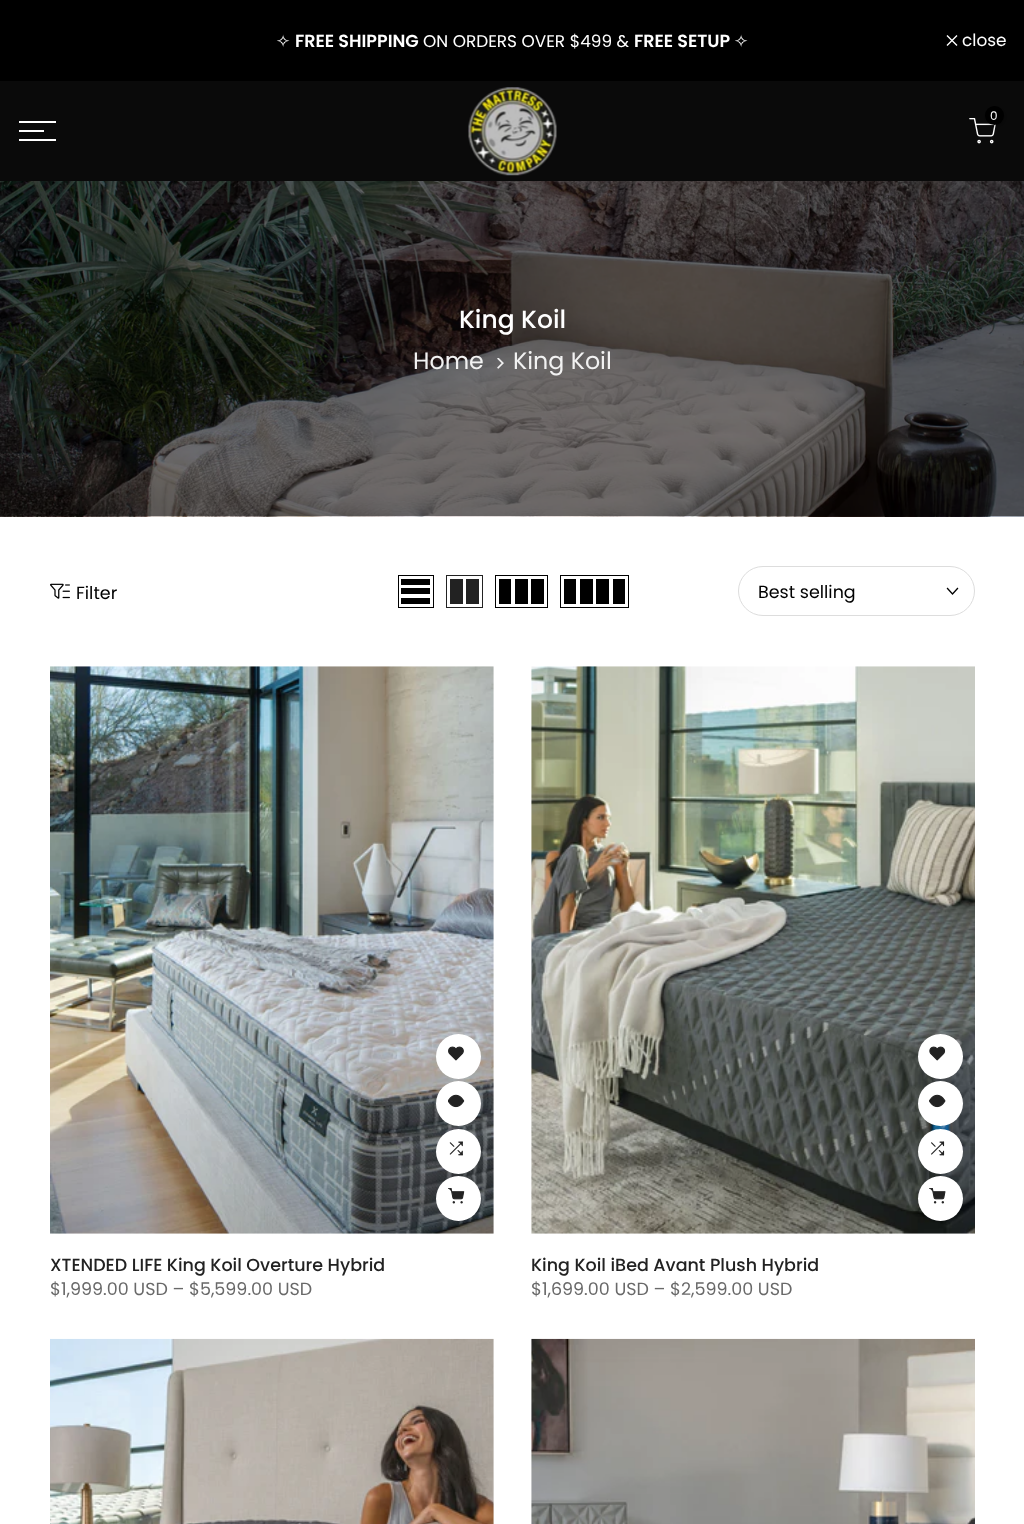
<svg xmlns="http://www.w3.org/2000/svg" width="1024" height="1524" viewBox="0 0 1024 1524">
  <defs>
    <filter id="blur1" x="-50%" y="-200%" width="200%" height="500%"><feGaussianBlur stdDeviation="2"/></filter>
  </defs>
  <rect width="100%" height="100%" fill="#ffffff"/>
  <rect x="0" y="0" width="1024" height="81" fill="#000000"/>
  <text x="276" y="47" font-family="DejaVu Sans" font-size="16.9" fill="#ffffff">✧</text>
  <text x="295" y="47" font-family="Poppins" font-size="17.5" font-weight="600" fill="#ffffff">FREE SHIPPING</text>
  <text x="423" y="47" font-family="Poppins" font-size="16.9" fill="#ffffff">ON ORDERS OVER $499 &amp;</text>
  <text x="634" y="47" font-family="Poppins" font-size="17.5" font-weight="600" fill="#ffffff">FREE SETUP</text>
  <text x="734" y="47" font-family="DejaVu Sans" font-size="16.9" fill="#ffffff">✧</text>
  <path d="M957 35.5L947 45.5M957 45.5L947 35.5" fill="none" stroke="#ffffff" stroke-width="1.4"/>
  <text x="962" y="46" font-family="Poppins" font-size="16.9" fill="#ffffff">close</text>
  <rect x="0" y="81" width="1024" height="100" fill="#0a0a0a"/>
  <image x="468" y="87" width="89" height="89" href="img1.png"/>
  <image x="969" y="118" width="27" height="26" href="img2.png"/>
  <rect x="986" y="108" width="19" height="18" rx="9" fill="#000000" fill-opacity="0.3" filter="url(#blur1)"/>
  <circle cx="994.5" cy="115.5" r="9.5" fill="#000000"/>
  <text x="990" y="120" font-family="Poppins" font-size="12" fill="#ffffff">0</text>
  <rect x="19" y="121" width="37" height="2" fill="#ffffff"/>
  <rect x="19" y="130" width="25" height="2" fill="#ffffff"/>
  <rect x="19" y="139" width="37" height="2" fill="#ffffff"/>
  <image x="0" y="181" width="1024" height="336" href="img3.png"/>
  <text x="459" y="328" font-family="Poppins" font-size="25" font-weight="500" fill="#ffffff">King Koil</text>
  <text x="413" y="369" font-family="Poppins" font-size="23.75" fill="#f2f2f2">Home</text>
  <image x="497" y="358" width="7" height="11" href="img4.png"/>
  <text x="513" y="369" font-family="Poppins" font-size="23.75" fill="#f2f2f2">King Koil</text>
  <image x="50" y="583" width="20" height="16" href="img5.png"/>
  <text x="76" y="599" font-family="Poppins" font-size="17.5" fill="#000000">Filter</text>
  <rect x="398.5" y="575.5" width="35" height="32" fill="none" stroke="#000000"/>
  <rect x="401" y="598" width="29" height="6" fill="#000000"/>
  <rect x="401" y="588" width="29" height="6" fill="#000000"/>
  <rect x="401" y="579" width="29" height="6" fill="#000000"/>
  <rect x="446.5" y="575.5" width="36" height="32" fill="none" stroke="#222222"/>
  <rect x="466" y="579" width="13" height="25" fill="#222222"/>
  <rect x="450" y="579" width="13" height="25" fill="#222222"/>
  <rect x="495.5" y="575.5" width="52" height="32" fill="none" stroke="#000000"/>
  <rect x="531" y="579" width="13" height="25" fill="#000000"/>
  <rect x="515" y="579" width="13" height="25" fill="#000000"/>
  <rect x="499" y="579" width="12" height="25" fill="#000000"/>
  <rect x="560.5" y="575.5" width="68" height="32" fill="none" stroke="#000000"/>
  <rect x="613" y="579" width="12" height="25" fill="#000000"/>
  <rect x="596" y="579" width="13" height="25" fill="#000000"/>
  <rect x="580" y="579" width="13" height="25" fill="#000000"/>
  <rect x="564" y="579" width="12" height="25" fill="#000000"/>
  <rect x="738.5" y="566.5" width="236" height="49" rx="24.5" fill="none" stroke="#dddddd"/>
  <text x="758" y="598" font-family="Poppins" font-size="17.5" fill="#000000">Best selling</text>
  <path d="M957.5 588.5L952.5 594L947.5 588.5" fill="none" stroke="#000000" stroke-width="1.3" stroke-linecap="square"/>
  <image x="50" y="666" width="444" height="568" href="img6.png"/>
  <circle cx="458.5" cy="1056.5" r="22.5" fill="#ffffff"/>
  <image x="448" y="1046" width="16" height="15" href="img7.png"/>
  <circle cx="458.5" cy="1103.5" r="22.5" fill="#ffffff"/>
  <image x="448" y="1094" width="17" height="14" href="img8.png"/>
  <circle cx="458.5" cy="1151.5" r="22.5" fill="#ffffff"/>
  <image x="449" y="1141" width="14" height="15" href="img9.png"/>
  <circle cx="458.5" cy="1198.5" r="22.5" fill="#ffffff"/>
  <image x="448" y="1188" width="17" height="16" href="img10.png"/>
  <text x="50" y="1271" font-family="Poppins" font-size="17.5" font-weight="500" fill="#222222">XTENDED LIFE King Koil Overture Hybrid</text>
  <text x="50" y="1295" font-family="Poppins" font-size="17.5" fill="#696969">$1,999.00 USD – $5,599.00 USD</text>
  <image x="531" y="666" width="444" height="568" href="img11.png"/>
  <circle cx="940.5" cy="1056.5" r="22.5" fill="#ffffff"/>
  <image x="929" y="1046" width="17" height="15" href="img12.png"/>
  <circle cx="940.5" cy="1103.5" r="22.5" fill="#ffffff"/>
  <image x="929" y="1094" width="17" height="14" href="img13.png"/>
  <circle cx="940.5" cy="1151.5" r="22.5" fill="#ffffff"/>
  <image x="931" y="1141" width="14" height="15" href="img14.png"/>
  <circle cx="940.5" cy="1198.5" r="22.5" fill="#ffffff"/>
  <image x="929" y="1188" width="17" height="16" href="img15.png"/>
  <text x="531" y="1271" font-family="Poppins" font-size="17.5" font-weight="500" fill="#222222">King Koil iBed Avant Plush Hybrid</text>
  <text x="531" y="1295" font-family="Poppins" font-size="17.5" fill="#696969">$1,699.00 USD – $2,599.00 USD</text>
  <image x="50" y="1338" width="444" height="186" href="img16.png"/>
  <image x="531" y="1338" width="444" height="186" href="img17.png"/>
</svg>
